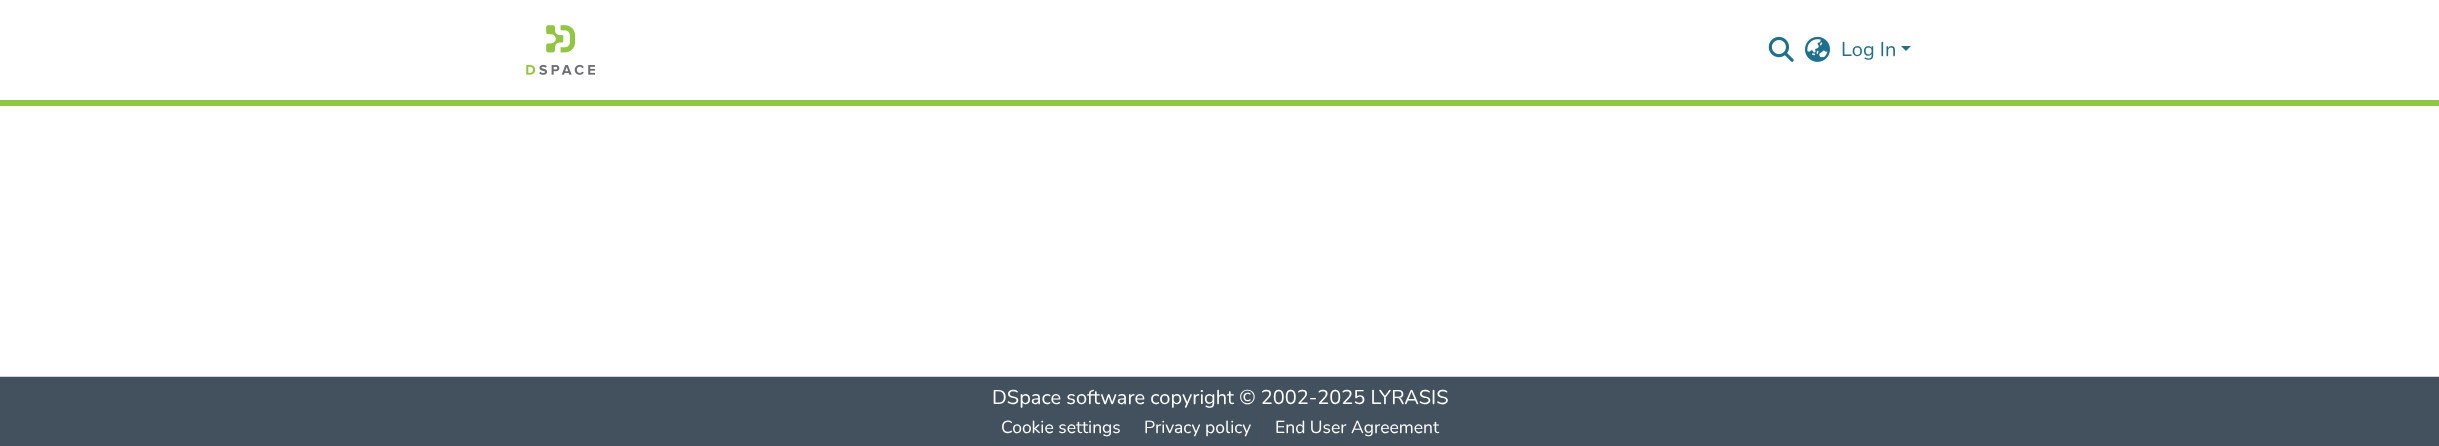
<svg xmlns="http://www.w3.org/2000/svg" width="2439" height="446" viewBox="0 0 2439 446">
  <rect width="100%" height="100%" fill="#ffffff"/>
  <rect x="0" y="100" width="2439" height="6" fill="#92c642"/>
  <image x="526" y="25" width="69" height="50" href="img1.png"/>
  <image x="1768" y="36" width="26" height="26" href="img2.png"/>
  <image x="1805" y="36" width="25" height="26" href="img3.png"/>
  <text x="1841" y="56" font-family="Nunito" font-size="20" fill="#1e6f90">Log In</text>
  <path d="M1901 46H1911L1906 51Z" fill="#1e6f90"/>
  <rect x="0" y="377" width="2439" height="69" fill="#43515f"/>
  <rect x="0" y="376" width="2439" height="1" fill="#ced4da"/>
  <text x="992" y="404" font-family="Nunito" font-size="20" fill="#ffffff">DSpace software copyright © 2002-2025 LYRASIS</text>
  <text x="1001" y="433" font-family="Nunito" font-size="17.5" fill="#ffffff">Cookie settings</text>
  <rect x="1131" y="413" width="1" height="28" fill="#495057"/>
  <text x="1144" y="433" font-family="Nunito" font-size="17.5" fill="#ffffff">Privacy policy</text>
  <rect x="1263" y="413" width="1" height="28" fill="#495057"/>
  <text x="1275" y="433" font-family="Nunito" font-size="17.5" fill="#ffffff">End User Agreement</text>
</svg>
